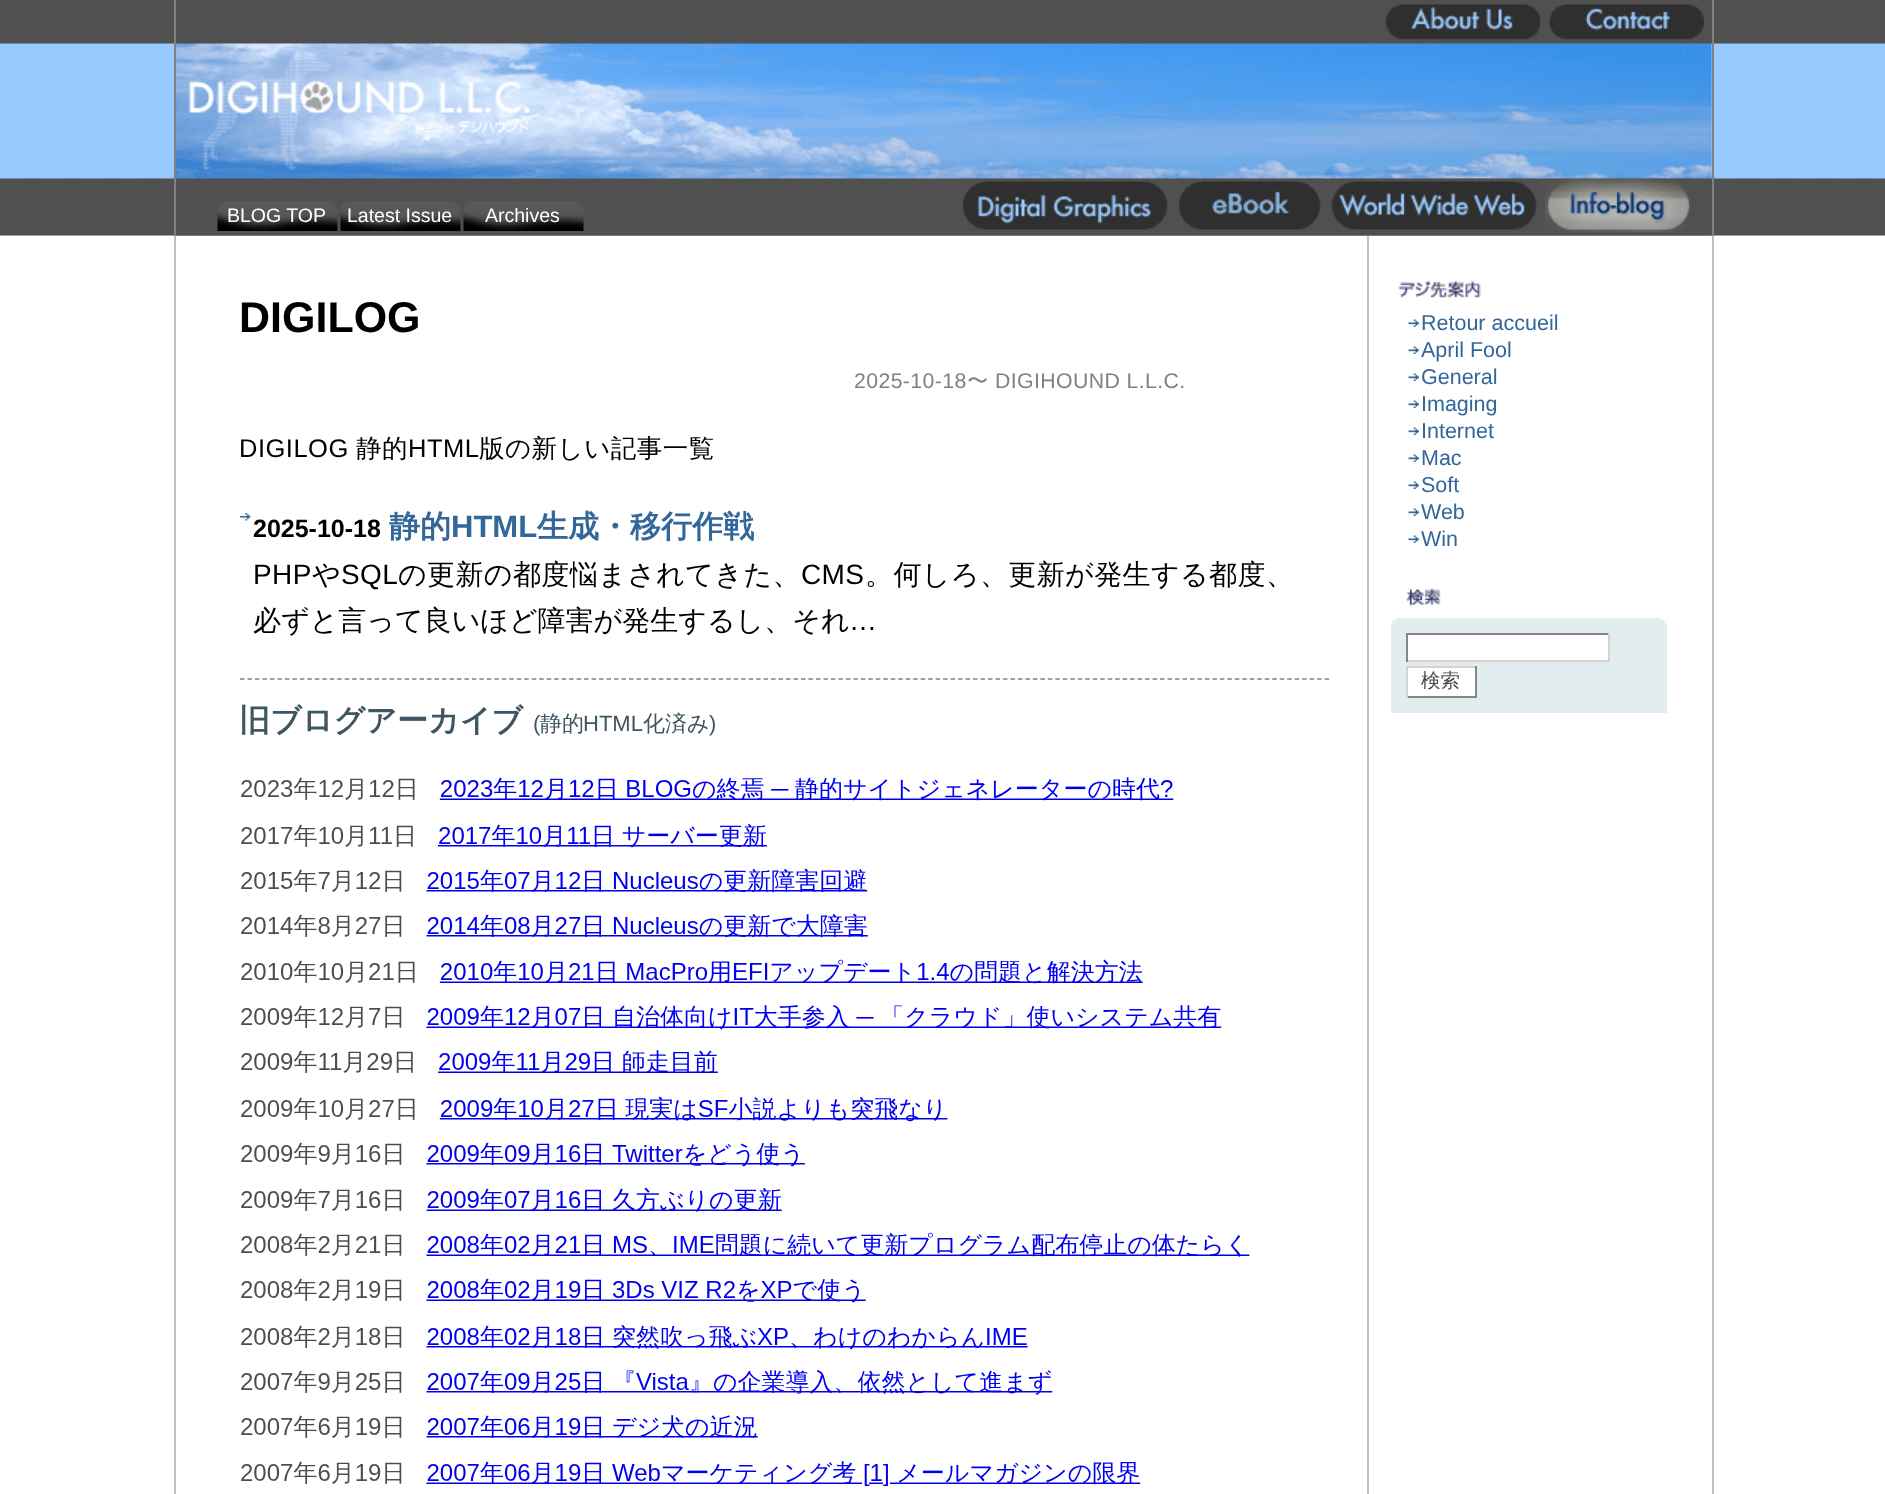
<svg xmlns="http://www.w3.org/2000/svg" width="1885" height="1494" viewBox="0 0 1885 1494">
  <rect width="100%" height="100%" fill="#ffffff"/>
  <image x="0" y="0" width="1885" height="236" href="img1.png"/>
  <image x="176" y="43" width="1536" height="193" href="img2.png"/>
  <rect x="1712" y="0" width="2" height="236" fill="#808080"/>
  <rect x="174" y="0" width="2" height="236" fill="#808080"/>
  <image x="1385" y="4" width="156" height="36" href="img3.png"/>
  <image x="1549" y="4" width="155" height="36" href="img4.png"/>
  <image x="217" y="201" width="121" height="30" href="img5.png"/>
  <text x="227" y="222" font-family="Liberation Sans" font-size="19.5" fill="#ffffff">BLOG TOP</text>
  <image x="340" y="201" width="121" height="30" href="img5.png"/>
  <text x="347" y="222" font-family="Liberation Sans" font-size="19.5" fill="#ffffff">Latest Issue</text>
  <image x="463" y="201" width="121" height="30" href="img5.png"/>
  <text x="485" y="222" font-family="Liberation Sans" font-size="19.5" fill="#ffffff">Archives</text>
  <image x="961" y="178" width="208" height="52" href="img6.png"/>
  <image x="1176" y="178" width="147" height="52" href="img7.png"/>
  <image x="1330" y="178" width="208" height="52" href="img8.png"/>
  <image x="1545" y="178" width="147" height="55" href="img9.png"/>
  <rect x="1712" y="236" width="2" height="1258" fill="#c0c0c0"/>
  <rect x="174" y="236" width="2" height="1258" fill="#c0c0c0"/>
  <text x="239" y="332" font-family="Liberation Sans" font-size="43" font-weight="bold" fill="#000000">DIGILOG</text>
  <text x="854" y="388" font-family="Liberation Sans" font-size="21.25" letter-spacing="0.4" fill="#808080">2025-10-18</text>
  <text x="967" y="388" font-family="WenQuanYi Zen Hei" font-size="21.25" font-weight="500" letter-spacing="0.4" fill="#808080">〜</text>
  <text x="995" y="388" font-family="Liberation Sans" font-size="21.25" letter-spacing="0.4" fill="#808080">DIGIHOUND L.L.C.</text>
  <text x="239" y="457" font-family="Liberation Sans" font-size="25.5" letter-spacing="0.5" fill="#000000">DIGILOG</text>
  <text x="356" y="457" font-family="WenQuanYi Zen Hei" font-size="25.5" font-weight="500" letter-spacing="0.5" fill="#000000">静的</text>
  <text x="408" y="457" font-family="Liberation Sans" font-size="25.5" letter-spacing="0.5" fill="#000000">HTML</text>
  <text x="479" y="457" font-family="WenQuanYi Zen Hei" font-size="25.5" font-weight="500" letter-spacing="0.5" fill="#000000">版の新しい記事一覧</text>
  <image x="240" y="513" width="11" height="8" href="img10.png"/>
  <text x="253" y="537" font-family="Liberation Sans" font-size="25" font-weight="bold" fill="#000000">2025-10-18</text>
  <text x="389" y="537" font-family="WenQuanYi Zen Hei" font-size="31" font-weight="bold" fill="#336699">静的</text>
  <text x="451" y="537" font-family="Liberation Sans" font-size="31" font-weight="bold" fill="#336699">HTML</text>
  <text x="537" y="537" font-family="WenQuanYi Zen Hei" font-size="31" font-weight="bold" fill="#336699">生成・移行作戦</text>
  <text x="253" y="584" font-family="Liberation Sans" font-size="28" letter-spacing="0.4" fill="#000000">PHP</text>
  <text x="312" y="584" font-family="WenQuanYi Zen Hei" font-size="28" font-weight="500" letter-spacing="0.4" fill="#000000">や</text>
  <text x="341" y="584" font-family="Liberation Sans" font-size="28" letter-spacing="0.4" fill="#000000">SQL</text>
  <text x="398" y="584" font-family="WenQuanYi Zen Hei" font-size="28" font-weight="500" letter-spacing="0.4" fill="#000000">の更新の都度悩まされてきた、</text>
  <text x="801" y="584" font-family="Liberation Sans" font-size="28" letter-spacing="0.4" fill="#000000">CMS</text>
  <text x="865" y="584" font-family="WenQuanYi Zen Hei" font-size="28" font-weight="500" letter-spacing="0.4" fill="#000000">。何しろ、更新が発生する都度、</text>
  <text x="253" y="630" font-family="WenQuanYi Zen Hei" font-size="28" font-weight="500" fill="#000000">必ずと言って良いほど障害が発生するし、それ</text>
  <text x="849" y="630" font-family="Liberation Sans" font-size="28" fill="#000000">…</text>
  <path d="M240 679H1330.5" fill="none" stroke="#808080" stroke-width="1.5" stroke-dasharray="4.5 2.98"/>
  <text x="239" y="731" font-family="WenQuanYi Zen Hei" font-size="31" font-weight="bold" fill="#3e565f">旧ブログアーカイブ</text>
  <text x="533" y="731" font-family="Liberation Sans" font-size="22" fill="#3e565f">(</text>
  <text x="540" y="731" font-family="WenQuanYi Zen Hei" font-size="22" font-weight="500" fill="#3e565f">静的</text>
  <text x="583" y="731" font-family="Liberation Sans" font-size="22" fill="#3e565f">HTML</text>
  <text x="643" y="731" font-family="WenQuanYi Zen Hei" font-size="22" font-weight="500" fill="#3e565f">化済み</text>
  <text x="709" y="731" font-family="Liberation Sans" font-size="22" fill="#3e565f">)</text>
  <image x="241" y="777" width="1009" height="709" href="img11.png"/>
  <rect x="1367" y="236" width="2" height="1258" fill="#c0c0c0"/>
  <image x="1398" y="280" width="83" height="18" href="img12.png"/>
  <image x="1408" y="319" width="11" height="8" href="img13.png"/>
  <text x="1421" y="330" font-family="Liberation Sans" font-size="21.5" fill="#336699">Retour accueil</text>
  <image x="1408" y="346" width="11" height="8" href="img13.png"/>
  <text x="1421" y="357" font-family="Liberation Sans" font-size="21.5" fill="#336699">April Fool</text>
  <image x="1408" y="373" width="11" height="8" href="img13.png"/>
  <text x="1421" y="384" font-family="Liberation Sans" font-size="21.5" fill="#336699">General</text>
  <image x="1408" y="400" width="11" height="8" href="img13.png"/>
  <text x="1421" y="411" font-family="Liberation Sans" font-size="21.5" fill="#336699">Imaging</text>
  <image x="1408" y="427" width="11" height="8" href="img13.png"/>
  <text x="1421" y="438" font-family="Liberation Sans" font-size="21.5" fill="#336699">Internet</text>
  <image x="1408" y="454" width="11" height="8" href="img13.png"/>
  <text x="1421" y="465" font-family="Liberation Sans" font-size="21.5" fill="#336699">Mac</text>
  <image x="1408" y="481" width="11" height="8" href="img13.png"/>
  <text x="1421" y="492" font-family="Liberation Sans" font-size="21.5" fill="#336699">Soft</text>
  <image x="1408" y="508" width="11" height="8" href="img13.png"/>
  <text x="1421" y="519" font-family="Liberation Sans" font-size="21.5" fill="#336699">Web</text>
  <image x="1408" y="535" width="11" height="8" href="img13.png"/>
  <text x="1421" y="546" font-family="Liberation Sans" font-size="21.5" fill="#336699">Win</text>
  <image x="1406" y="588" width="35" height="19" href="img14.png"/>
  <rect x="1391" y="618" width="276" height="95" fill="#e2edf0"/>
  <image x="1391" y="618" width="276" height="6" href="img15.png"/>
  <rect x="1408" y="635" width="200" height="25" fill="#ffffff"/>
  <rect x="1406" y="633" width="204" height="2" fill="#868686"/>
  <rect x="1608" y="633" width="2" height="29" fill="#d4d2cf"/>
  <rect x="1406" y="660" width="204" height="2" fill="#d4d2cf"/>
  <rect x="1406" y="633" width="2" height="29" fill="#868686"/>
  <rect x="1408" y="668" width="67" height="28" fill="#ffffff"/>
  <rect x="1406" y="666" width="70" height="2" fill="#d4d2cf"/>
  <rect x="1475" y="666" width="2" height="32" fill="#868686"/>
  <rect x="1406" y="696" width="70" height="2" fill="#868686"/>
  <rect x="1406" y="666" width="2" height="32" fill="#d4d2cf"/>
  <text x="1421" y="687" font-family="WenQuanYi Zen Hei" font-size="19.5" font-weight="500" fill="#494949">検索</text>
</svg>
